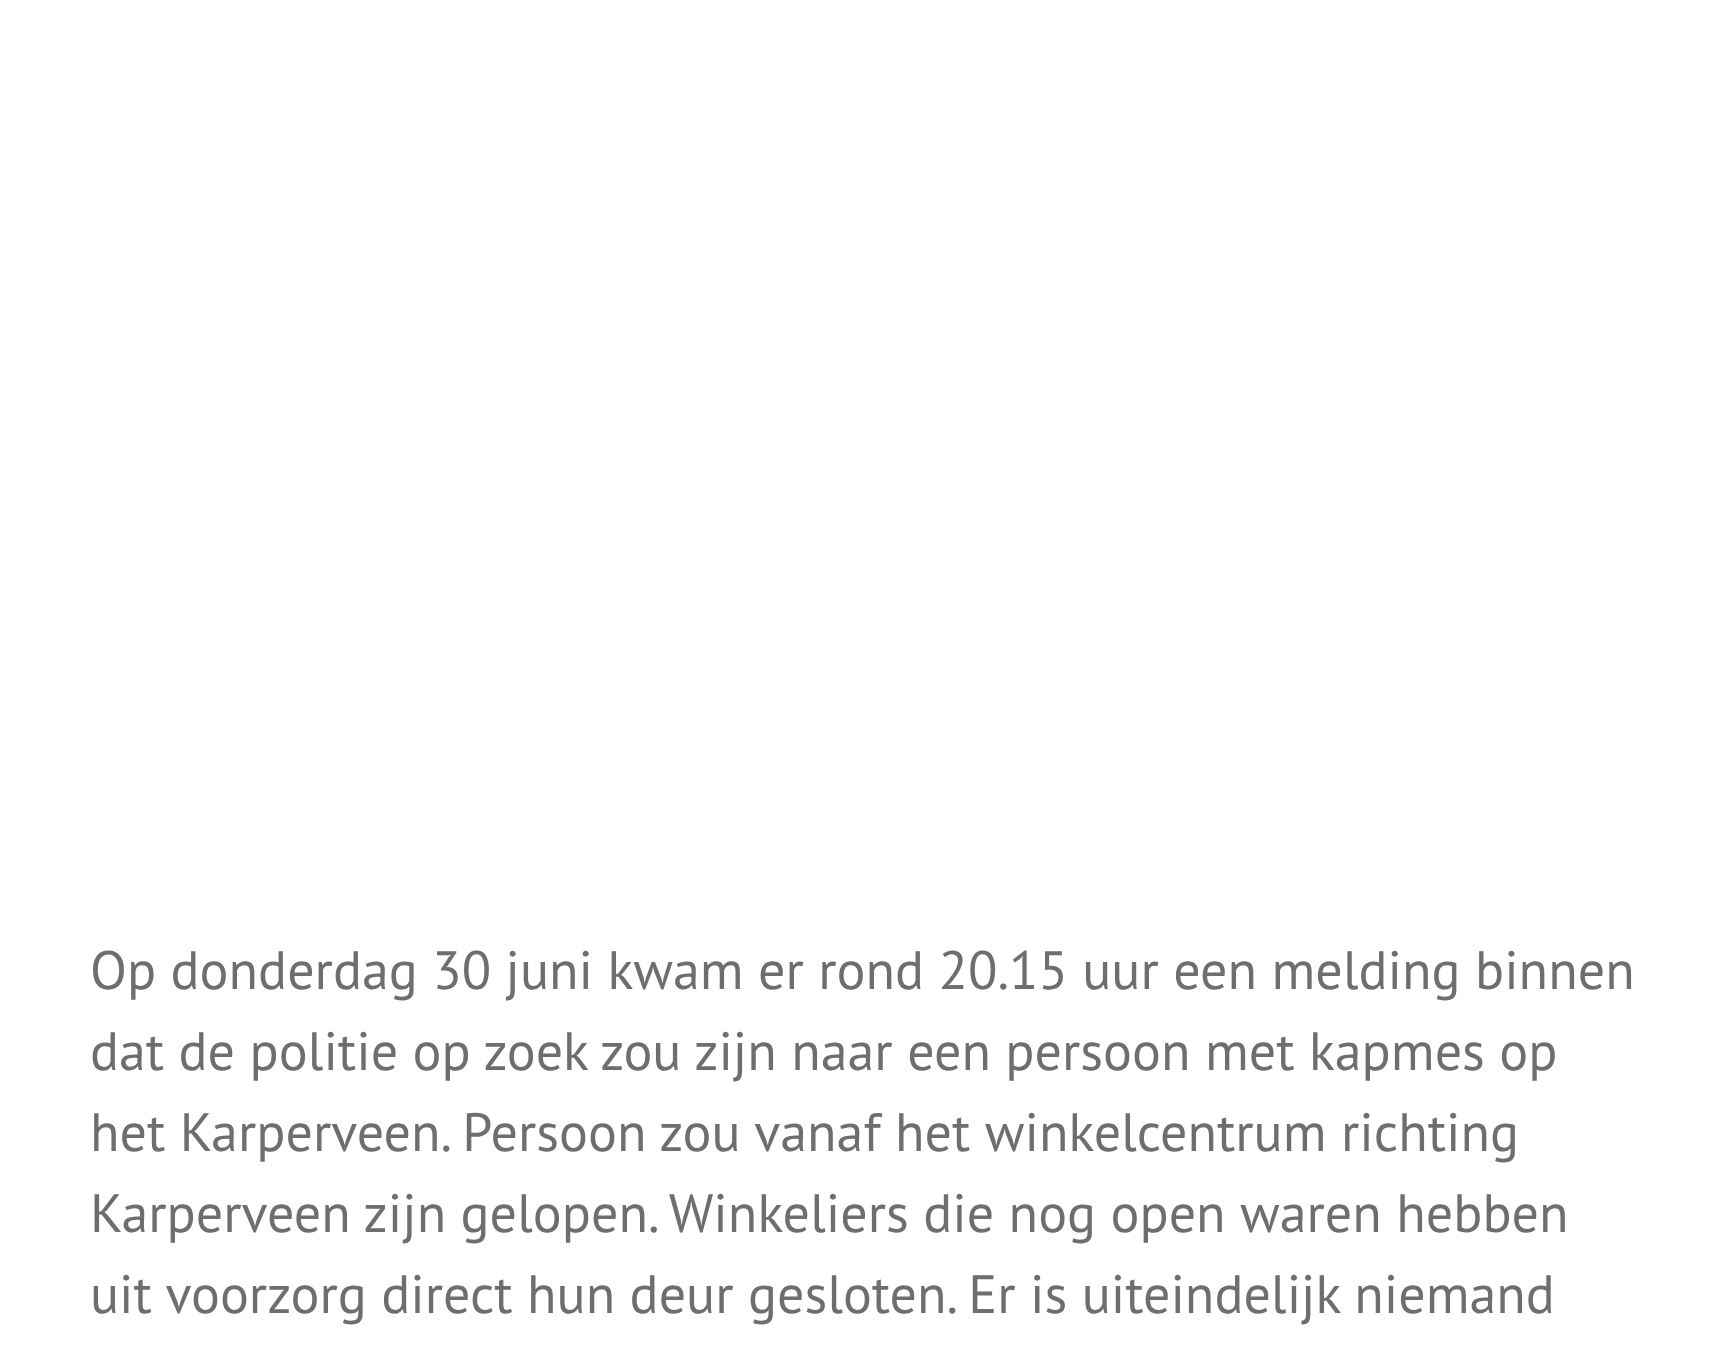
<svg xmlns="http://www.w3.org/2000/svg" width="1727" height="1357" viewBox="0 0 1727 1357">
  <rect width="100%" height="100%" fill="#ffffff"/>
  <text x="90" y="989" font-family="PT Sans" font-size="54" fill="#6f6e6c">Op donderdag 30 juni kwam er rond 20.15 uur een melding binnen</text>
  <text x="90" y="1070" font-family="PT Sans" font-size="54" fill="#6f6e6c">dat de politie op zoek zou zijn naar een persoon met kapmes op</text>
  <text x="90" y="1151" font-family="PT Sans" font-size="54" fill="#6f6e6c">het Karperveen. Persoon zou vanaf het winkelcentrum richting</text>
  <text x="90" y="1232" font-family="PT Sans" font-size="54" fill="#6f6e6c">Karperveen zijn gelopen. Winkeliers die nog open waren hebben</text>
  <text x="90" y="1313" font-family="PT Sans" font-size="54" fill="#6f6e6c">uit voorzorg direct hun deur gesloten. Er is uiteindelijk niemand</text>
</svg>
